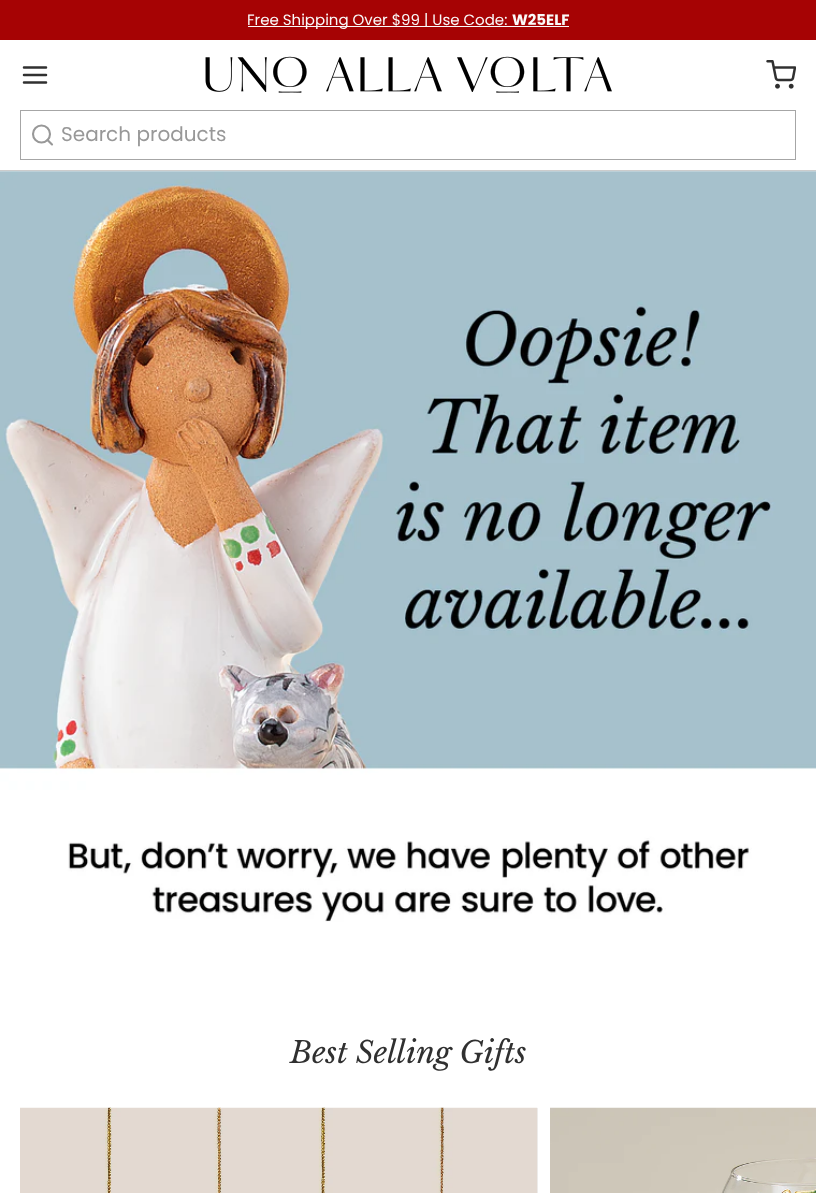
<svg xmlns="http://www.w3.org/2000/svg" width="816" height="1193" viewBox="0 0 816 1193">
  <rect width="100%" height="100%" fill="#ffffff"/>
  <rect x="0" y="0" width="816" height="40" fill="#a60304"/>
  <rect x="248" y="26" width="321" height="1" fill="#fafafa"/>
  <text x="247" y="25" font-family="Poppins" font-size="15" fill="#fafafa">Free Shipping Over $99 | Use Code:</text>
  <text x="512" y="25" font-family="Poppins" font-size="15" font-weight="bold" fill="#fafafa">W25ELF</text>
  <rect x="0" y="170" width="816" height="1" fill="#cccccc"/>
  <path d="M24 75H46M24 67.5H46M24 82.5H46" fill="none" stroke="#303030" stroke-width="2.5" stroke-linecap="round" stroke-linejoin="round"/>
  <image x="205" y="56" width="407" height="37" href="img1.png"/>
  <image x="766" y="60" width="30" height="29" href="img2.png"/>
  <rect x="20.5" y="110.5" width="775" height="49" fill="none" stroke="#a6a6a6"/>
  <circle cx="41.5" cy="134" r="8.5" fill="none" stroke="#989898" stroke-width="2.1"/>
  <path d="M52 144.5L47.5 140" fill="none" stroke="#989898" stroke-width="2.1" stroke-linecap="round" stroke-linejoin="round"/>
  <text x="61" y="141" font-family="Poppins" font-size="20" fill="#989898">Search products</text>
  <image x="0" y="171" width="816" height="751" href="img3.png"/>
  <text x="290" y="1063" font-family="Libre Baskerville" font-size="30" font-style="italic" fill="#303030">Best Selling Gifts</text>
  <rect x="537" y="1108" width="1" height="85" fill="#f0f0f0"/>
  <image x="20" y="1107" width="518" height="86" href="img4.png"/>
  <image x="550" y="1107" width="266" height="86" href="img5.png"/>
</svg>
